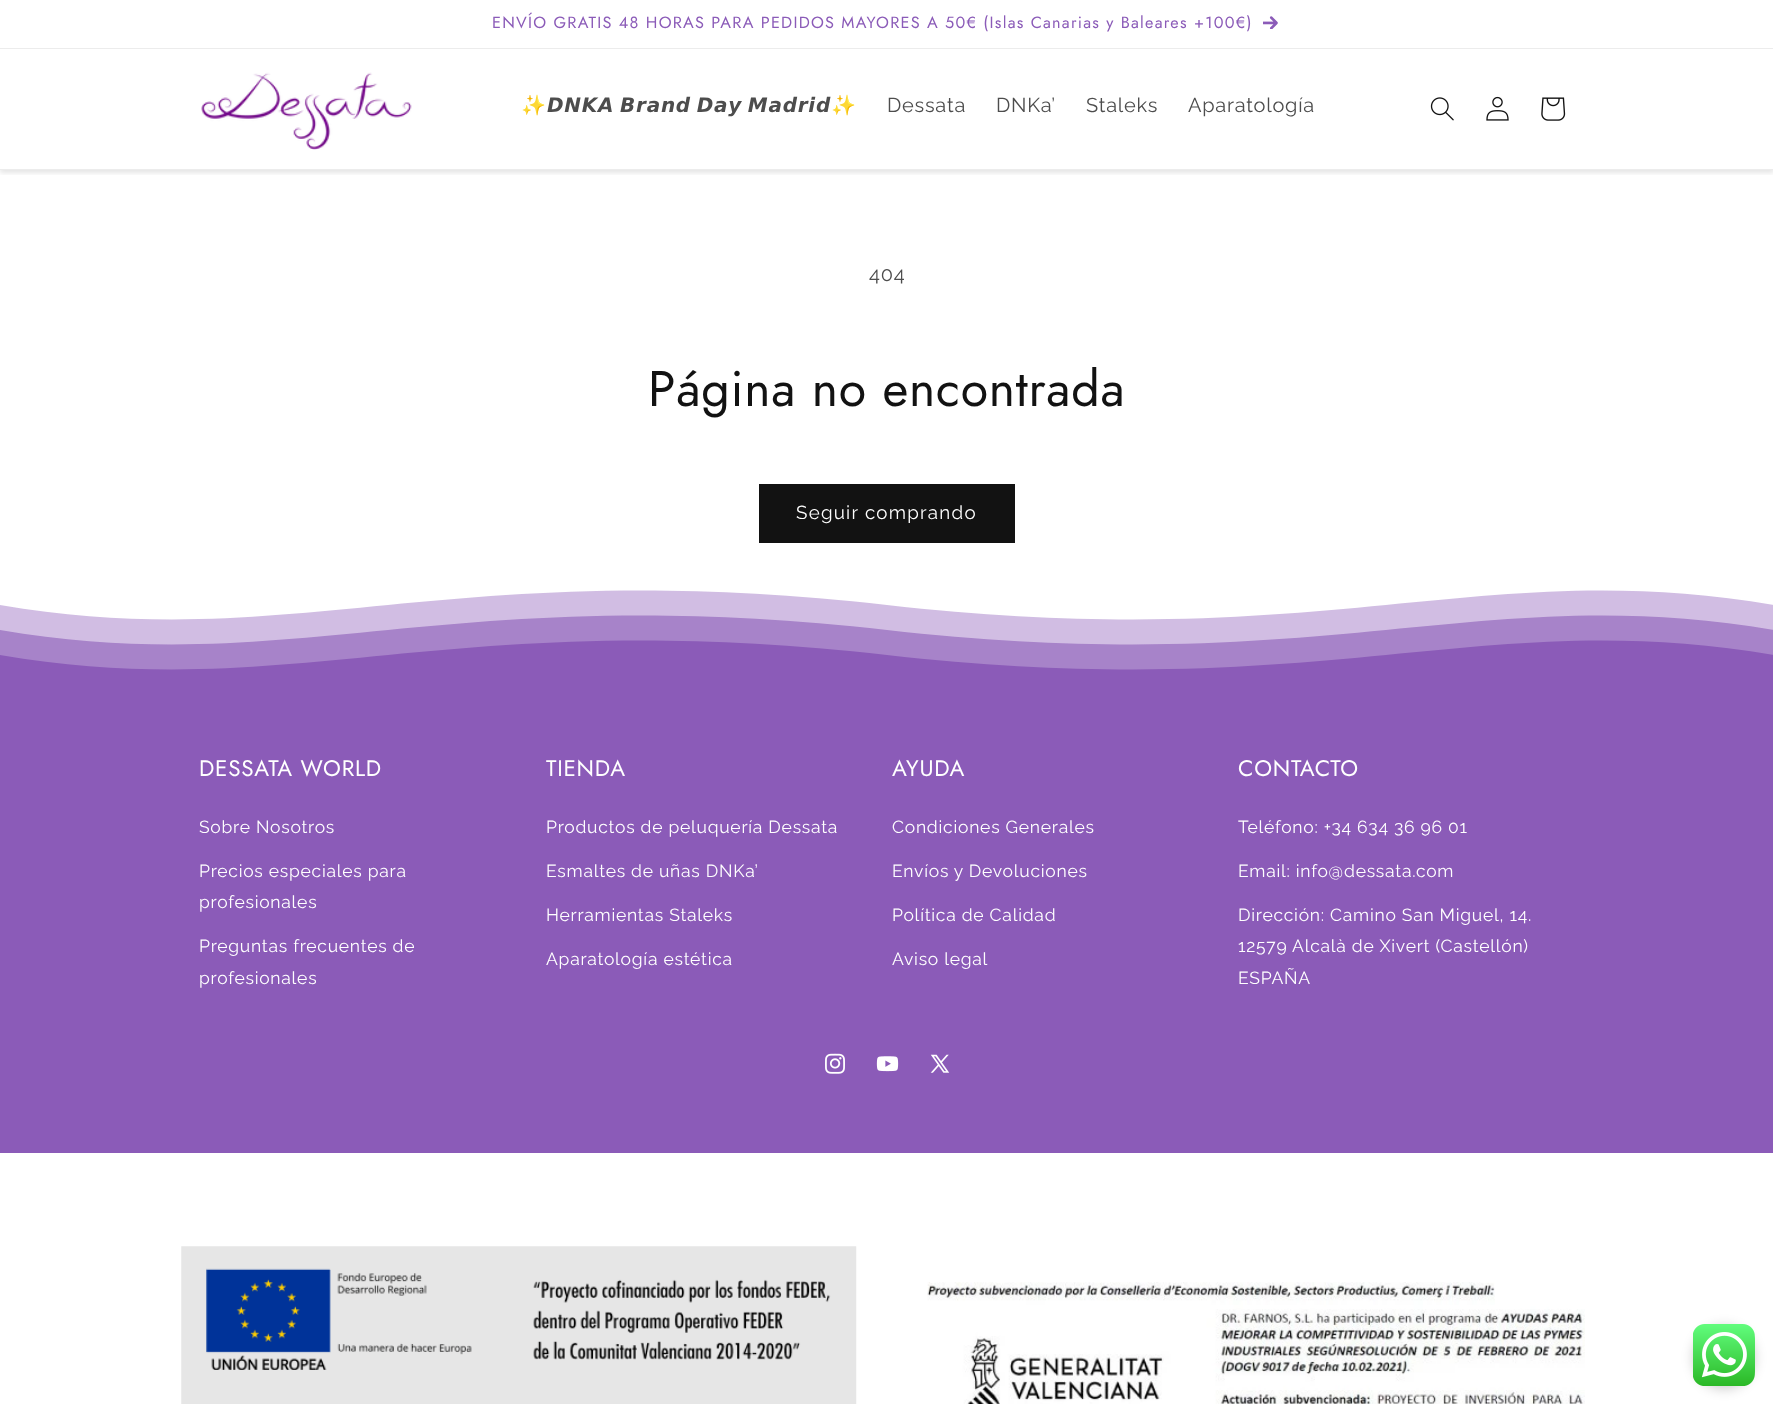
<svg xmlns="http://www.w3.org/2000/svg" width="1773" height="1404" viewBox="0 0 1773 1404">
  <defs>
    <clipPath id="clip1"><rect x="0" y="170" width="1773" height="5"/></clipPath>
    <filter id="blur1" x="-50%" y="-200%" width="200%" height="500%"><feGaussianBlur stdDeviation="2.5"/></filter>
    <filter id="blur2" x="-50%" y="-200%" width="200%" height="500%"><feGaussianBlur stdDeviation="6"/></filter>
  </defs>
  <rect width="100%" height="100%" fill="#ffffff"/>
  <g clip-path="url(#clip1)">
    <rect x="0" y="51" width="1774" height="122" fill="#000000" fill-opacity="0.1" filter="url(#blur1)"/>
  </g>
  <rect x="0" y="48" width="1773" height="1" fill="#ececec"/>
  <text x="492" y="28" font-family="Jost" font-size="16.25" letter-spacing="1.25" fill="#8b5bb8">ENVÍO GRATIS 48 HORAS PARA PEDIDOS MAYORES A 50€ (Islas Canarias y Baleares +100€)</text>
  <image x="1263" y="16" width="15" height="13" href="img1.png"/>
  <rect x="0" y="169" width="1773" height="1" fill="#ececec"/>
  <image x="201" y="72" width="211" height="78" href="img2.png"/>
  <text x="521" y="112" font-family="Noto Color Emoji" font-size="20" letter-spacing="0.75" fill="#4d4d4d">✨</text>
  <text x="547" y="112" word-spacing="-2" font-family="DejaVu Sans" font-size="20" font-weight="bold" font-style="italic" letter-spacing="0.75" fill="#4d4d4d">𝘿𝙉𝙆𝘼 𝘽𝙧𝙖𝙣𝙙 𝘿𝙖𝙮 𝙈𝙖𝙙𝙧𝙞𝙙</text>
  <text x="831" y="112" font-family="Noto Color Emoji" font-size="20" letter-spacing="0.75" fill="#4d4d4d">✨</text>
  <text x="887" y="112" font-family="Raleway" font-size="20" letter-spacing="0.75" fill="#4d4d4d">Dessata</text>
  <text x="996" y="112" font-family="Raleway" font-size="20" letter-spacing="0.75" fill="#4d4d4d">DNKa’</text>
  <text x="1086" y="112" font-family="Raleway" font-size="20" letter-spacing="0.75" fill="#4d4d4d">Staleks</text>
  <text x="1188" y="112" font-family="Raleway" font-size="20" letter-spacing="0.75" fill="#4d4d4d">Aparatología</text>
  <image x="1430" y="97" width="24" height="24" href="img3.png"/>
  <image x="1486" y="96" width="23" height="25" href="img4.png"/>
  <image x="1541" y="97" width="25" height="24" href="img5.png"/>
  <text x="869" y="281" font-family="Raleway" font-size="20" letter-spacing="0.75" fill="#4d4d4d">404</text>
  <text x="648" y="406" font-family="Jost" font-size="50" letter-spacing="0.75" fill="#121212">Página no encontrada</text>
  <rect x="759" y="484" width="256" height="59" fill="#121212"/>
  <text x="796" y="519" font-family="Raleway" font-size="18.75" letter-spacing="1.25" fill="#ffffff">Seguir comprando</text>
  <rect x="0" y="755" width="1773" height="398" fill="#8b5bb8"/>
  <image x="0" y="590" width="1773" height="80" href="img6.png"/>
  <image x="0" y="615" width="1773" height="55" href="img7.png"/>
  <image x="0" y="640" width="1773" height="115" href="img8.png"/>
  <text x="199" y="776" font-family="Jost" font-size="22.5" letter-spacing="0.75" fill="#ffffff">DESSATA WORLD</text>
  <text x="199" y="833" font-family="Raleway" font-size="17.5" letter-spacing="0.75" fill="#ffffff">Sobre Nosotros</text>
  <text x="199" y="877" font-family="Raleway" font-size="17.5" letter-spacing="0.75" fill="#ffffff">Precios especiales para</text>
  <text x="199" y="908" font-family="Raleway" font-size="17.5" letter-spacing="0.75" fill="#ffffff">profesionales</text>
  <text x="199" y="952" font-family="Raleway" font-size="17.5" letter-spacing="0.75" fill="#ffffff">Preguntas frecuentes de</text>
  <text x="199" y="984" font-family="Raleway" font-size="17.5" letter-spacing="0.75" fill="#ffffff">profesionales</text>
  <text x="546" y="776" font-family="Jost" font-size="22.5" letter-spacing="0.75" fill="#ffffff">TIENDA</text>
  <text x="546" y="833" font-family="Raleway" font-size="17.5" letter-spacing="0.75" fill="#ffffff">Productos de peluquería Dessata</text>
  <text x="546" y="877" font-family="Raleway" font-size="17.5" letter-spacing="0.75" fill="#ffffff">Esmaltes de uñas DNKa’</text>
  <text x="546" y="921" font-family="Raleway" font-size="17.5" letter-spacing="0.75" fill="#ffffff">Herramientas Staleks</text>
  <text x="546" y="965" font-family="Raleway" font-size="17.5" letter-spacing="0.75" fill="#ffffff">Aparatología estética</text>
  <text x="892" y="776" font-family="Jost" font-size="22.5" letter-spacing="0.75" fill="#ffffff">AYUDA</text>
  <text x="892" y="833" font-family="Raleway" font-size="17.5" letter-spacing="0.75" fill="#ffffff">Condiciones Generales</text>
  <text x="892" y="877" font-family="Raleway" font-size="17.5" letter-spacing="0.75" fill="#ffffff">Envíos y Devoluciones</text>
  <text x="892" y="921" font-family="Raleway" font-size="17.5" letter-spacing="0.75" fill="#ffffff">Política de Calidad</text>
  <text x="892" y="965" font-family="Raleway" font-size="17.5" letter-spacing="0.75" fill="#ffffff">Aviso legal</text>
  <text x="1238" y="776" font-family="Jost" font-size="22.5" letter-spacing="0.75" fill="#ffffff">CONTACTO</text>
  <text x="1238" y="833" font-family="Raleway" font-size="17.5" letter-spacing="0.75" fill="#ffffff">Teléfono: +34 634 36 96 01</text>
  <text x="1238" y="877" font-family="Raleway" font-size="17.5" letter-spacing="0.75" fill="#ffffff">Email: info@dessata.com</text>
  <text x="1238" y="921" font-family="Raleway" font-size="17.5" letter-spacing="0.75" fill="#ffffff">Dirección: Camino San Miguel, 14.</text>
  <text x="1238" y="952" font-family="Raleway" font-size="17.5" letter-spacing="0.75" fill="#ffffff">12579 Alcalà de Xivert (Castellón)</text>
  <text x="1238" y="984" font-family="Raleway" font-size="17.5" letter-spacing="0.75" fill="#ffffff">ESPAÑA</text>
  <image x="825" y="1053" width="20" height="21" href="img9.png"/>
  <image x="876" y="1056" width="23" height="16" href="img10.png"/>
  <image x="930" y="1054" width="20" height="19" href="img11.png"/>
  <image x="181" y="1246" width="676" height="158" href="img12.png"/>
  <image x="927" y="1282" width="658" height="122" href="img13.png"/>
  <rect x="1693" y="1326" width="62" height="63" rx="31" fill="#000000" fill-opacity="0.2" filter="url(#blur2)"/>
  <image x="1693" y="1324" width="62" height="62" href="img14.png"/>
</svg>
